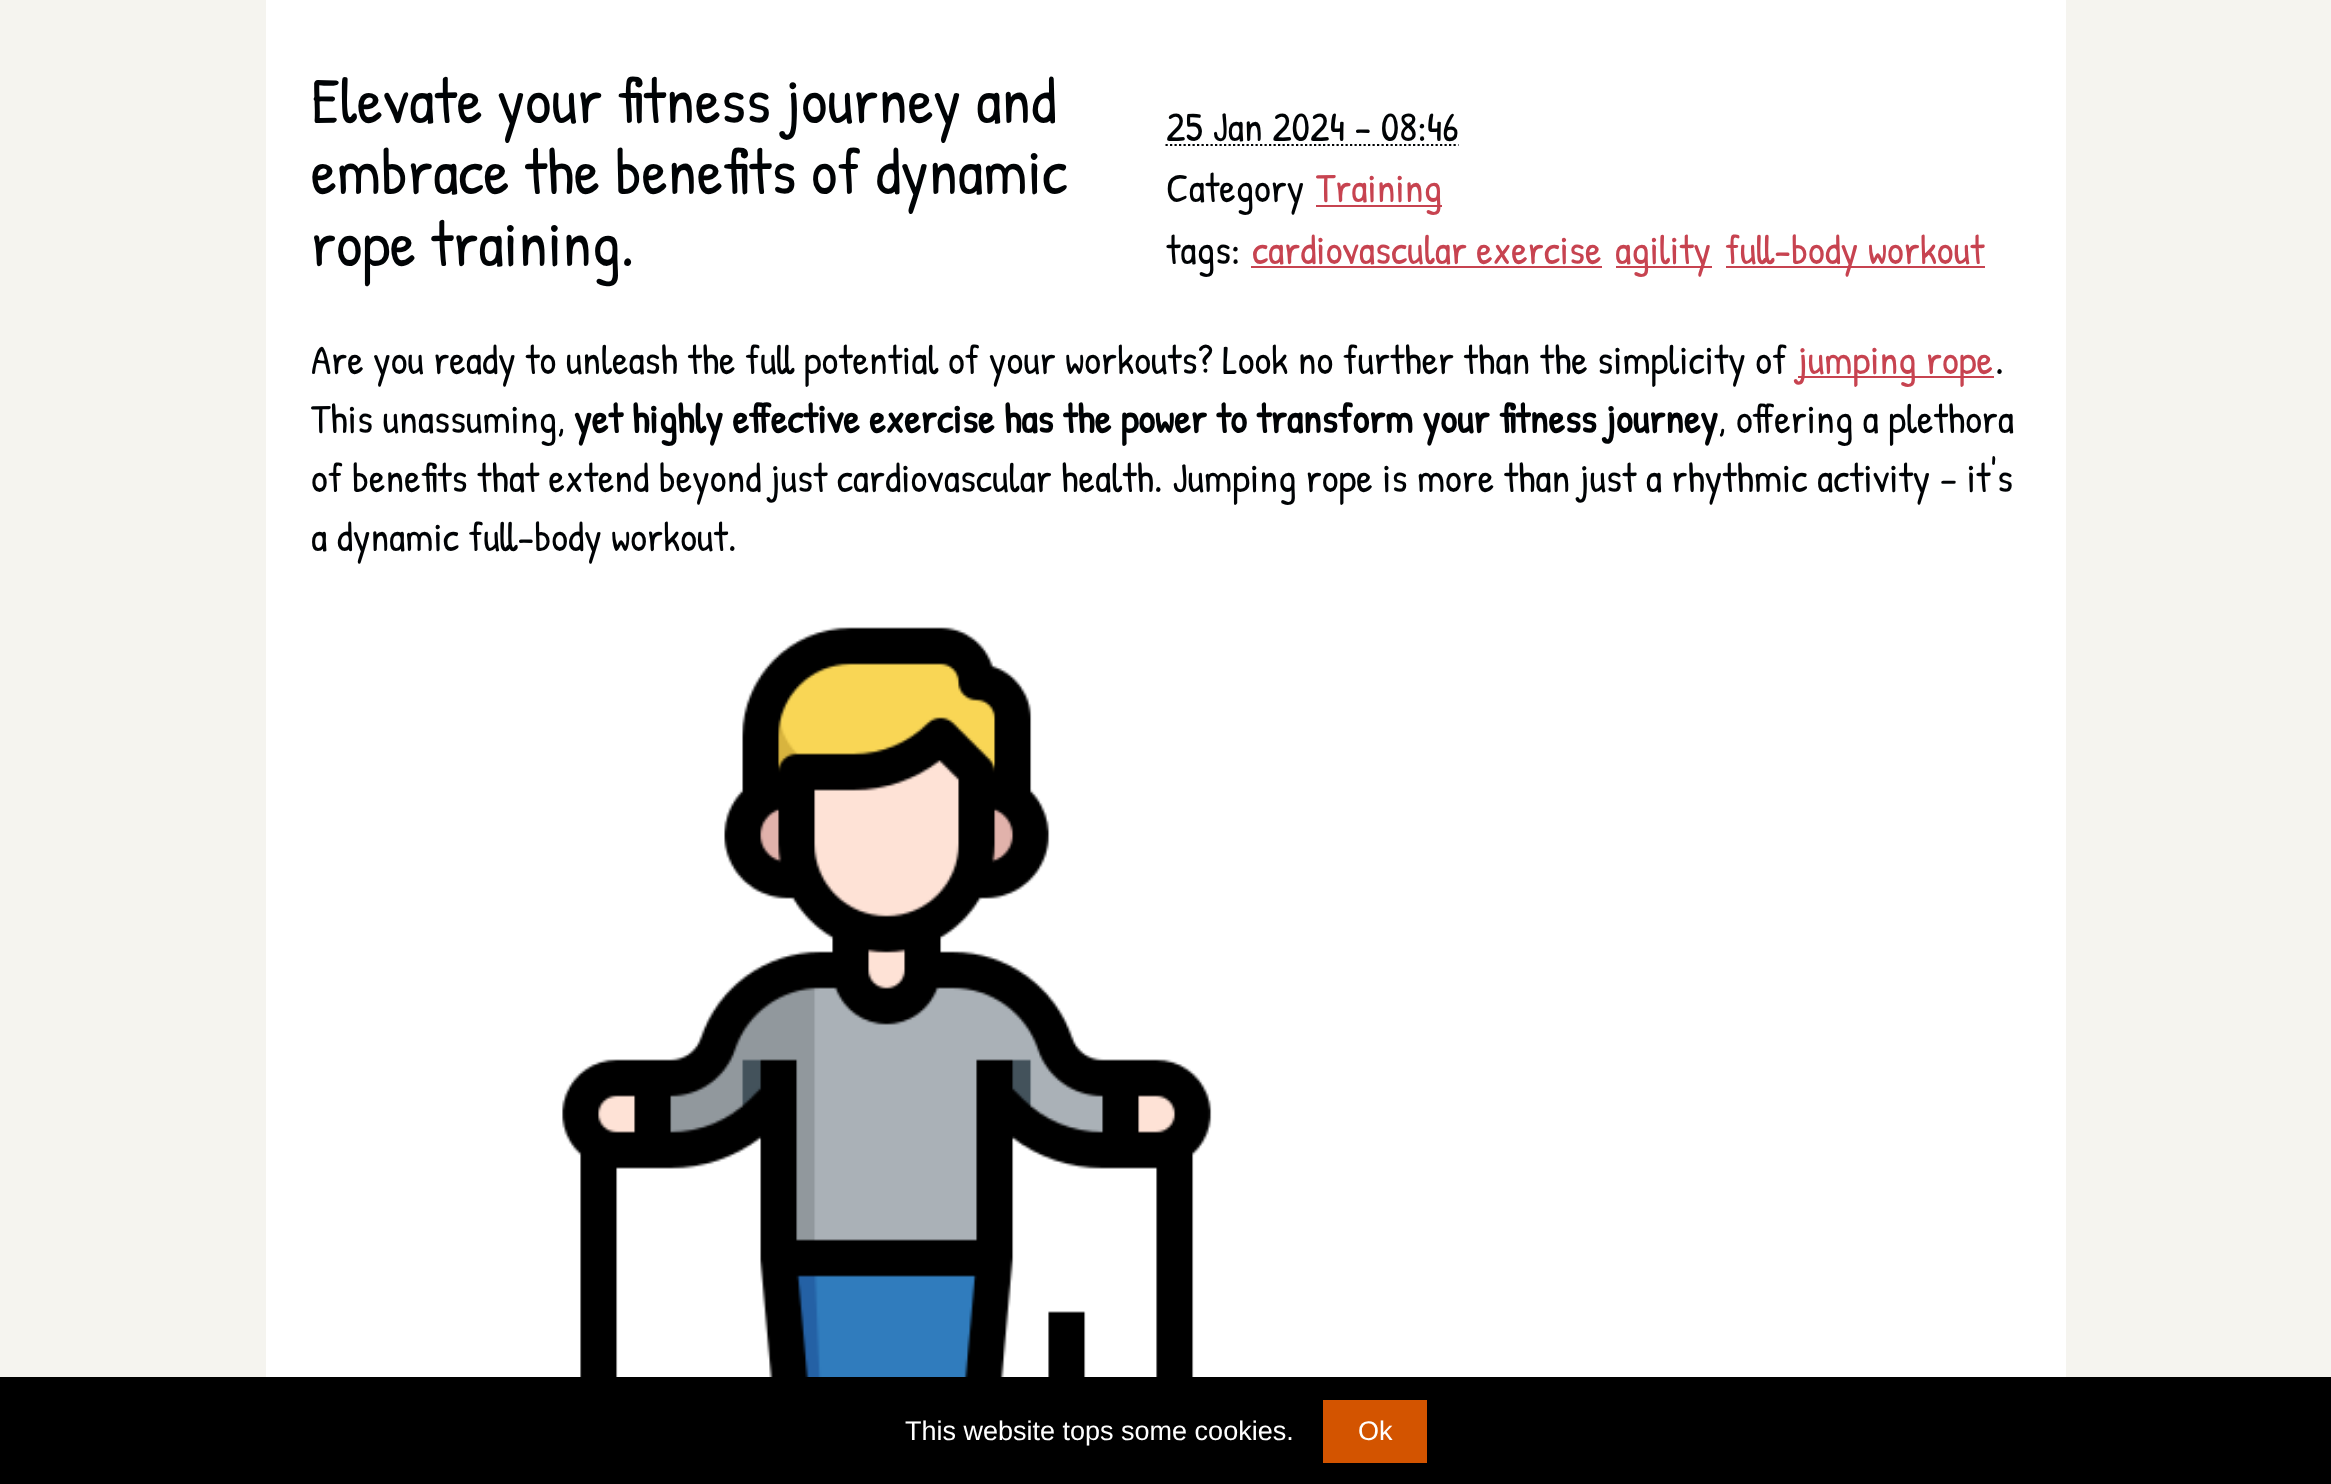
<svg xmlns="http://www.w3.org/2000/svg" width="2331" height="1484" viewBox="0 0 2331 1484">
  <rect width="100%" height="100%" fill="#f5f4ef"/>
  <rect x="266" y="0" width="1800" height="1377" fill="#ffffff"/>
  <text x="311" y="123" font-family="Patrick Hand" font-size="65" fill="#000305">Elevate your fitness journey and</text>
  <text x="311" y="194" font-family="Patrick Hand" font-size="65" fill="#000305">embrace the benefits of dynamic</text>
  <text x="311" y="266" font-family="Patrick Hand" font-size="65" fill="#000305">rope training.</text>
  <text x="311" y="374" font-family="Patrick Hand" font-size="41.4" fill="#000305">Are you ready to unleash the full potential of your workouts? Look no further than the simplicity of</text>
  <rect x="1798" y="376" width="196" height="2" fill="#c74350"/>
  <text x="1798" y="374" font-family="Patrick Hand" font-size="41.4" fill="#c74350">jumping rope</text>
  <text x="1995" y="374" font-family="Patrick Hand" font-size="41.4" fill="#000305">.</text>
  <text x="311" y="433" font-family="Patrick Hand" font-size="41.4" fill="#000305">This unassuming,</text>
  <text x="574" y="433" font-family="Patrick Hand" font-size="41.4" font-weight="bold" fill="#000305">yet highly effective exercise has the power to transform your fitness journey</text>
  <text x="1718" y="433" font-family="Patrick Hand" font-size="41.4" fill="#000305">, offering a plethora</text>
  <text x="311" y="492" font-family="Patrick Hand" font-size="41.4" fill="#000305">of benefits that extend beyond just cardiovascular health. Jumping rope is more than just a rhythmic activity – it's</text>
  <text x="311" y="551" font-family="Patrick Hand" font-size="41.4" fill="#000305">a dynamic full-body workout.</text>
  <image x="562" y="627" width="650" height="750" href="img1.png"/>
  <text x="1166" y="141" font-family="Patrick Hand" font-size="41.4" fill="#000305">25 Jan 2024 - 08:46</text>
  <path d="M1165.5 145H1458.5" fill="none" stroke="#000305" stroke-width="2.2" stroke-dasharray="2.25 2.25"/>
  <text x="1166" y="202" font-family="Patrick Hand" font-size="41.4" fill="#000305">Category</text>
  <rect x="1316" y="205" width="126" height="2" fill="#c74350"/>
  <text x="1316" y="202" font-family="Patrick Hand" font-size="41.4" fill="#c74350">Training</text>
  <text x="1166" y="264" font-family="Patrick Hand" font-size="41.4" fill="#000305">tags:</text>
  <text x="1252" y="264" font-family="Patrick Hand" font-size="41.4" fill="#c74350">cardiovascular exercise</text>
  <rect x="1251" y="266" width="351" height="2" fill="#c74350"/>
  <rect x="1616" y="266" width="96" height="2" fill="#c74350"/>
  <text x="1615" y="264" font-family="Patrick Hand" font-size="41.4" fill="#c74350">agility</text>
  <rect x="1726" y="266" width="259" height="2" fill="#c74350"/>
  <text x="1725" y="264" font-family="Patrick Hand" font-size="41.4" fill="#c74350">full-body workout</text>
  <rect x="0" y="1377" width="2331" height="107" fill="#000000"/>
  <text x="905" y="1440" font-family="Liberation Sans" font-size="27" fill="#ffffff">This website tops some cookies.</text>
  <rect x="1323" y="1400" width="104" height="63" fill="#d35400"/>
  <text x="1358" y="1440" font-family="Liberation Sans" font-size="27" fill="#ffffff">Ok</text>
</svg>
